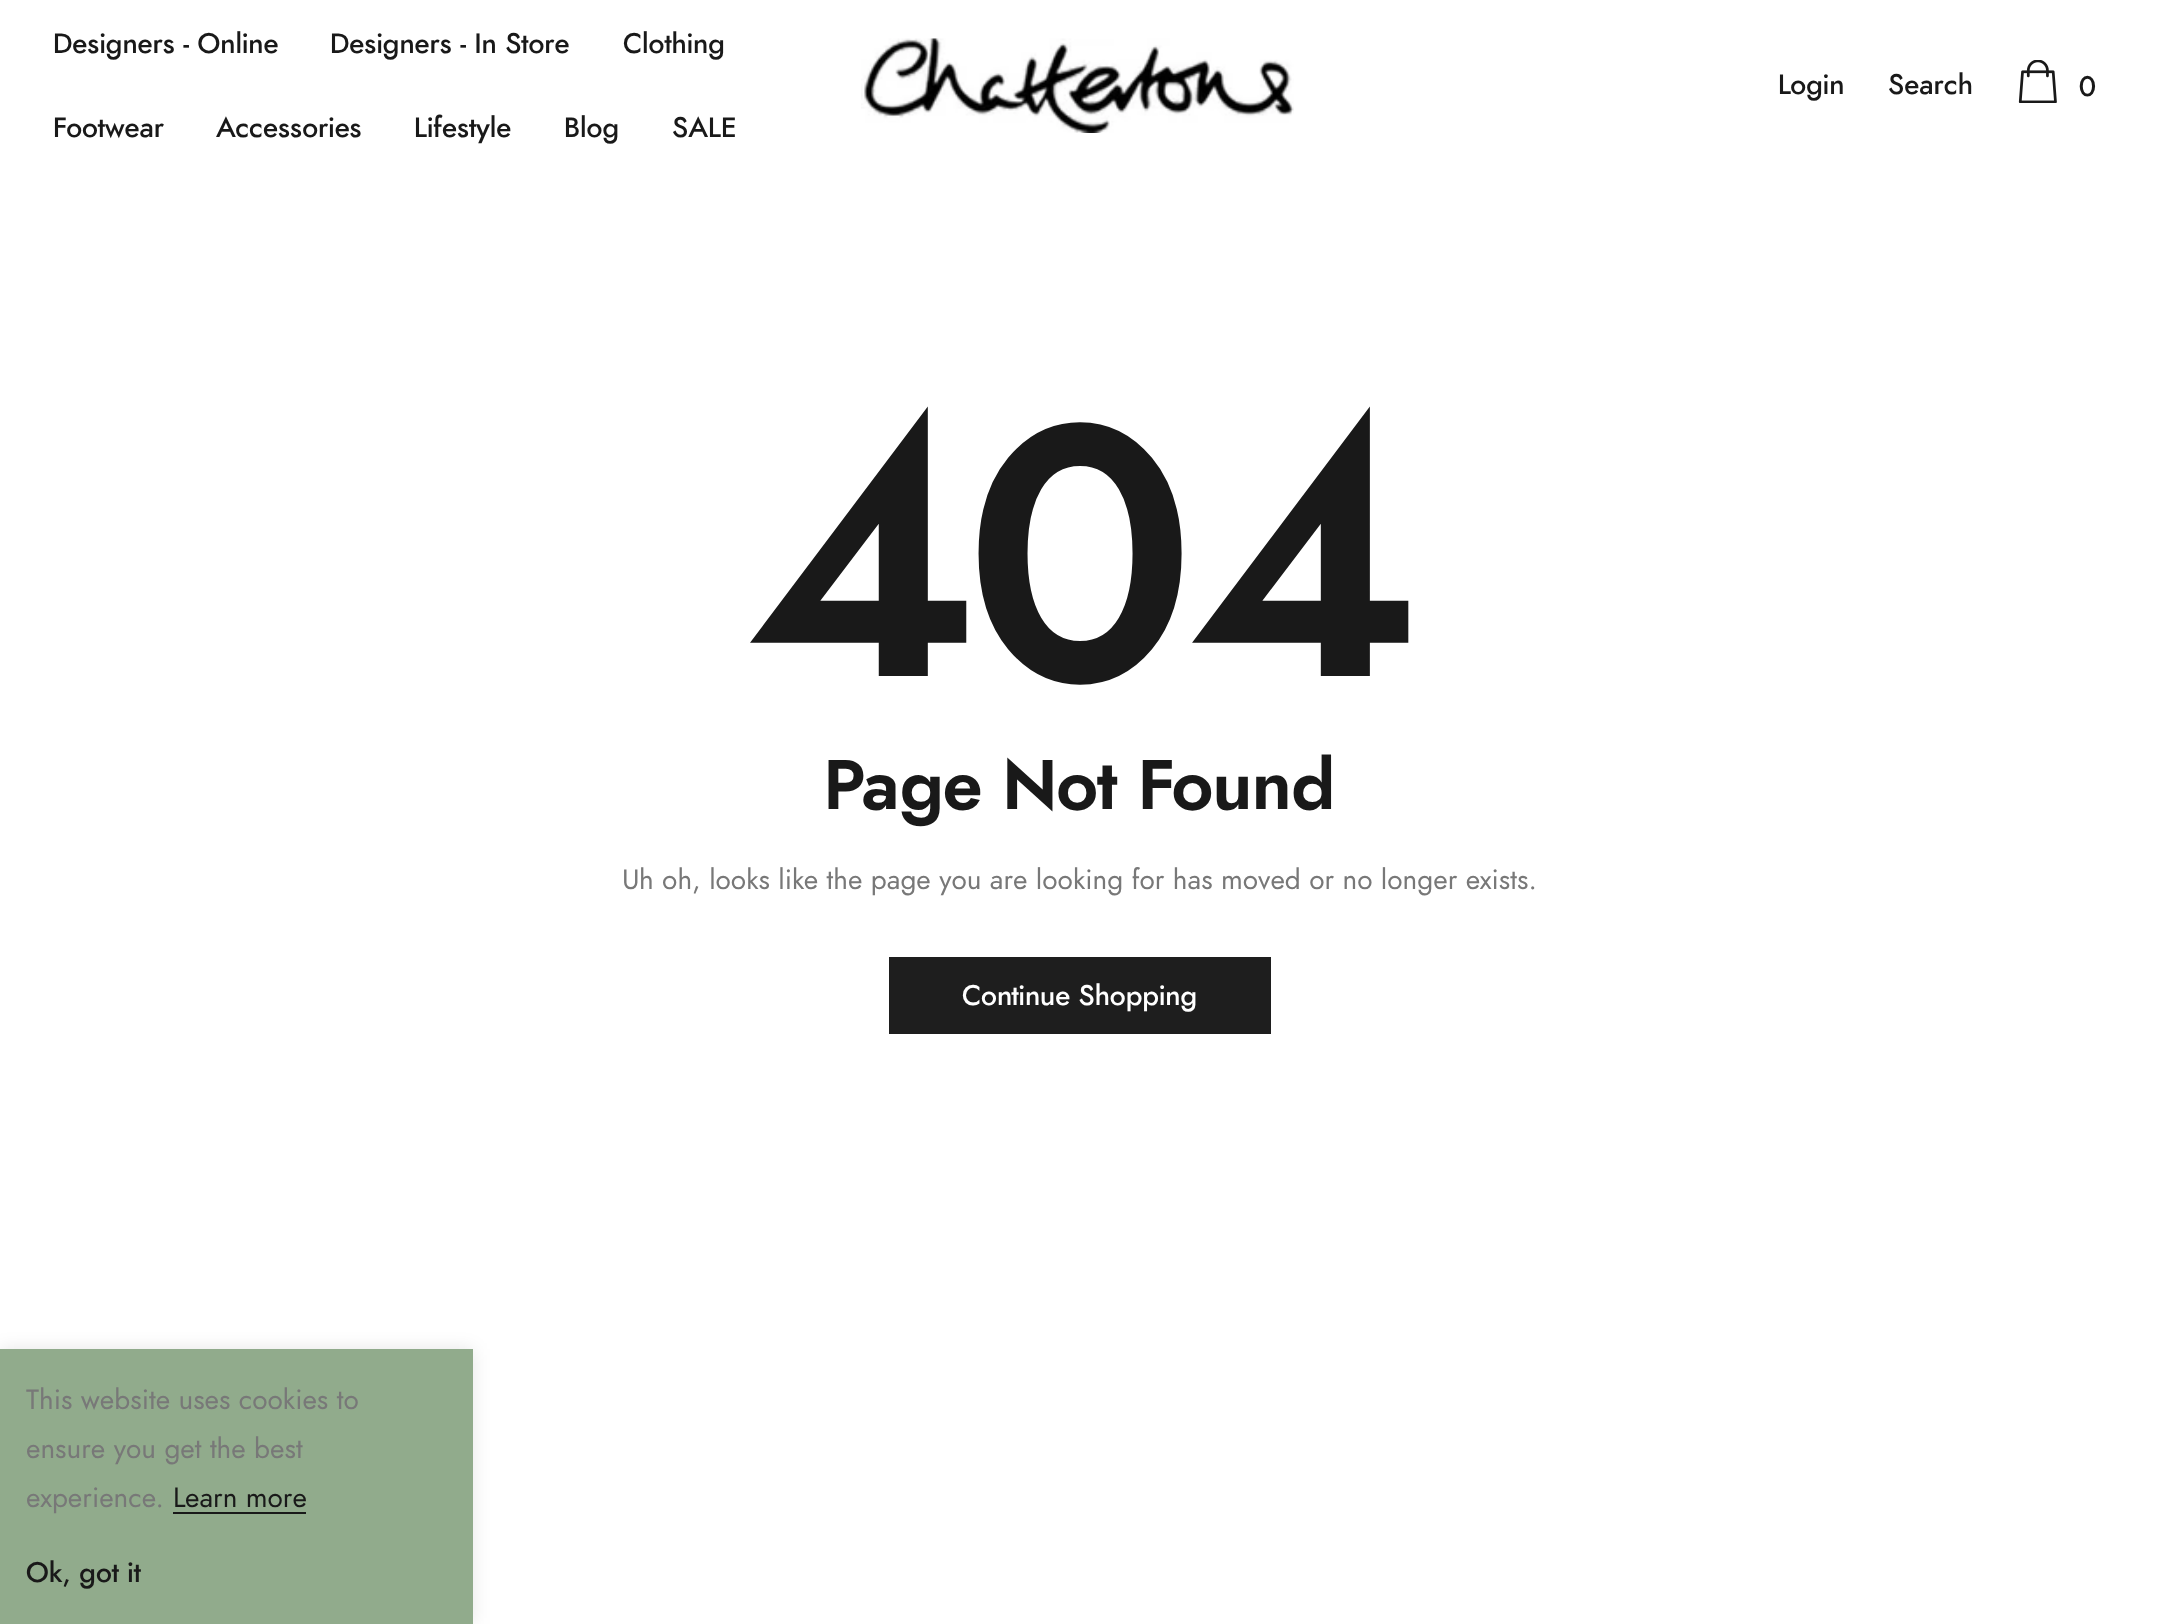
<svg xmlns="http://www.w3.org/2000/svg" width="2158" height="1624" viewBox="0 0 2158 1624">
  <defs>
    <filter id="blur1" x="-50%" y="-200%" width="200%" height="500%"><feGaussianBlur stdDeviation="9"/></filter>
  </defs>
  <rect width="100%" height="100%" fill="#ffffff"/>
  <text x="53" y="53" font-family="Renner" font-size="28" font-weight="500" fill="#191919">Designers - Online</text>
  <text x="330" y="53" font-family="Renner" font-size="28" font-weight="500" fill="#191919">Designers - In Store</text>
  <text x="623" y="53" font-family="Renner" font-size="28" font-weight="500" fill="#191919">Clothing</text>
  <text x="53" y="137" font-family="Renner" font-size="28" font-weight="500" fill="#191919">Footwear</text>
  <text x="216" y="137" font-family="Renner" font-size="28" font-weight="500" fill="#191919">Accessories</text>
  <text x="414" y="137" font-family="Renner" font-size="28" font-weight="500" fill="#191919">Lifestyle</text>
  <text x="564" y="137" font-family="Renner" font-size="28" font-weight="500" fill="#191919">Blog</text>
  <text x="672" y="137" font-family="Renner" font-size="28" font-weight="500" fill="#191919">SALE</text>
  <image x="861" y="38" width="433" height="95" href="img1.png"/>
  <text x="1778" y="94" font-family="Renner" font-size="28" font-weight="500" fill="#191919">Login</text>
  <text x="1888" y="94" font-family="Renner" font-size="28" font-weight="500" fill="#191919">Search</text>
  <image x="2018" y="60" width="39" height="43" href="img2.png"/>
  <text x="2079" y="96" font-family="Renner" font-size="28" font-weight="500" fill="#191919">0</text>
  <text x="750" y="676" font-family="Renner" font-size="350" font-weight="bold" fill="#191919">404</text>
  <text x="824" y="809" font-family="Renner" font-size="70" font-weight="bold" fill="#191919">Page Not Found</text>
  <text x="622" y="889" font-family="Renner" font-size="28" fill="#787878">Uh oh, looks like the page you are looking for has moved or no longer exists.</text>
  <rect x="889" y="957" width="382" height="77" fill="#1e1e1e"/>
  <text x="962" y="1005" font-family="Renner" font-size="28" font-weight="500" fill="#ffffff">Continue Shopping</text>
  <rect x="0" y="1349" width="473" height="275" fill="#000000" fill-opacity="0.1" filter="url(#blur1)"/>
  <rect x="0" y="1349" width="473" height="275" fill="#91ab8c"/>
  <text x="26" y="1409" font-family="Renner" font-size="28" fill="#787878">This website uses cookies to</text>
  <text x="26" y="1458" font-family="Renner" font-size="28" fill="#787878">ensure you get the best</text>
  <text x="26" y="1507" font-family="Renner" font-size="28" fill="#787878">experience.</text>
  <text x="173" y="1507" font-family="Renner" font-size="28" fill="#191919">Learn more</text>
  <rect x="173" y="1512" width="133" height="2" fill="#191919"/>
  <text x="26" y="1582" font-family="Renner" font-size="28" font-weight="500" fill="#191919">Ok, got it</text>
</svg>
